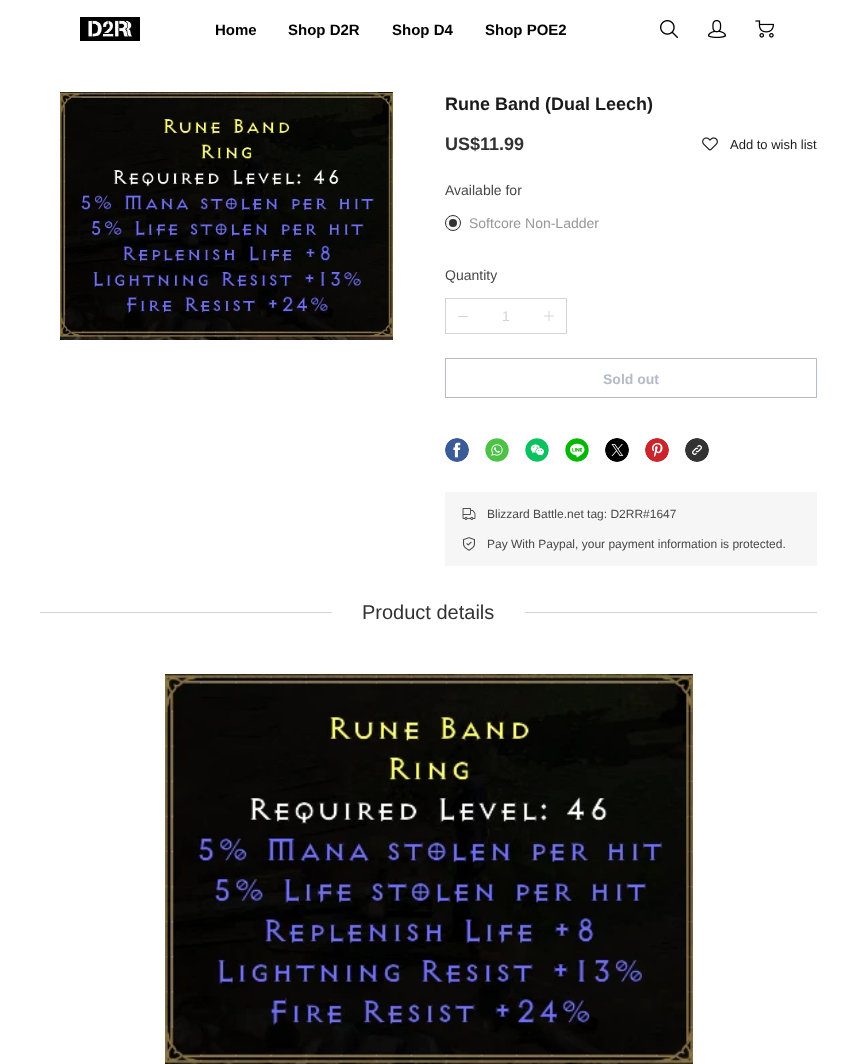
<svg xmlns="http://www.w3.org/2000/svg" width="857" height="1064" viewBox="0 0 857 1064">
  <rect width="100%" height="100%" fill="#ffffff"/>
  <image x="80" y="17" width="60" height="24" href="img1.png"/>
  <text x="215" y="35" font-family="Liberation Sans" font-size="15" font-weight="bold" fill="#000000">Home</text>
  <text x="288" y="35" font-family="Liberation Sans" font-size="15" font-weight="bold" fill="#000000">Shop D2R</text>
  <text x="392" y="35" font-family="Liberation Sans" font-size="15" font-weight="bold" fill="#000000">Shop D4</text>
  <text x="485" y="35" font-family="Liberation Sans" font-size="15" font-weight="bold" fill="#000000">Shop POE2</text>
  <image x="660" y="20" width="18" height="18" href="img2.png"/>
  <image x="707" y="19" width="19" height="20" href="img3.png"/>
  <image x="755" y="20" width="19" height="18" href="img4.png"/>
  <image x="60" y="92" width="333" height="248" href="img5.png"/>
  <text x="445" y="110" font-family="Liberation Sans" font-size="18" font-weight="bold" fill="#1a1a1b">Rune Band (Dual Leech)</text>
  <text x="445" y="150" font-family="Liberation Sans" font-size="18" font-weight="bold" fill="#323233">US$11.99</text>
  <image x="702" y="137" width="16" height="14" href="img6.png"/>
  <text x="730" y="149" font-family="Liberation Sans" font-size="13" fill="#1a1a1b">Add to wish list</text>
  <text x="445" y="195" font-family="Liberation Sans" font-size="14" fill="#484849">Available for</text>
  <circle cx="453" cy="223" r="7.5" fill="#f6f7f8" stroke="#323233"/>
  <circle cx="453" cy="223" r="4" fill="#323233"/>
  <text x="469" y="228" font-family="Liberation Sans" font-size="14" fill="#969799">Softcore Non-Ladder</text>
  <text x="445" y="280" font-family="Liberation Sans" font-size="14" fill="#484849">Quantity</text>
  <rect x="445.5" y="298.5" width="121" height="35" fill="none" stroke="#d1d5db"/>
  <rect x="458" y="316" width="10" height="1" fill="#d1d5db"/>
  <text x="502" y="321" font-family="Liberation Sans" font-size="14" fill="#d1d5db">1</text>
  <image x="544" y="311" width="10" height="10" href="img7.png"/>
  <rect x="445.5" y="358.5" width="371" height="39" fill="none" stroke="#b5bbc8"/>
  <text x="603" y="384" font-family="Liberation Sans" font-size="14" font-weight="bold" fill="#b5bbc8">Sold out</text>
  <image x="445" y="438" width="24" height="24" href="img8.png"/>
  <image x="485" y="438" width="24" height="24" href="img9.png"/>
  <image x="525" y="438" width="24" height="24" href="img10.png"/>
  <image x="565" y="438" width="24" height="24" href="img11.png"/>
  <image x="605" y="438" width="24" height="24" href="img12.png"/>
  <image x="645" y="438" width="24" height="24" href="img13.png"/>
  <image x="685" y="438" width="24" height="24" href="img14.png"/>
  <rect x="445" y="492" width="372" height="74" fill="#f6f6f6"/>
  <image x="462" y="508" width="14" height="12" href="img15.png"/>
  <text x="487" y="518" font-family="Liberation Sans" font-size="12" fill="#484849">Blizzard Battle.net tag: D2RR#1647</text>
  <image x="463" y="537" width="12" height="14" href="img16.png"/>
  <text x="487" y="548" font-family="Liberation Sans" font-size="12" fill="#484849">Pay With Paypal, your payment information is protected.</text>
  <rect x="40" y="612" width="292" height="1" fill="#d1d5db"/>
  <text x="362" y="619" font-family="Liberation Sans" font-size="20" fill="#323233">Product details</text>
  <rect x="525" y="612" width="292" height="1" fill="#d1d5db"/>
  <image x="165" y="674" width="528" height="390" href="img17.png"/>
</svg>
